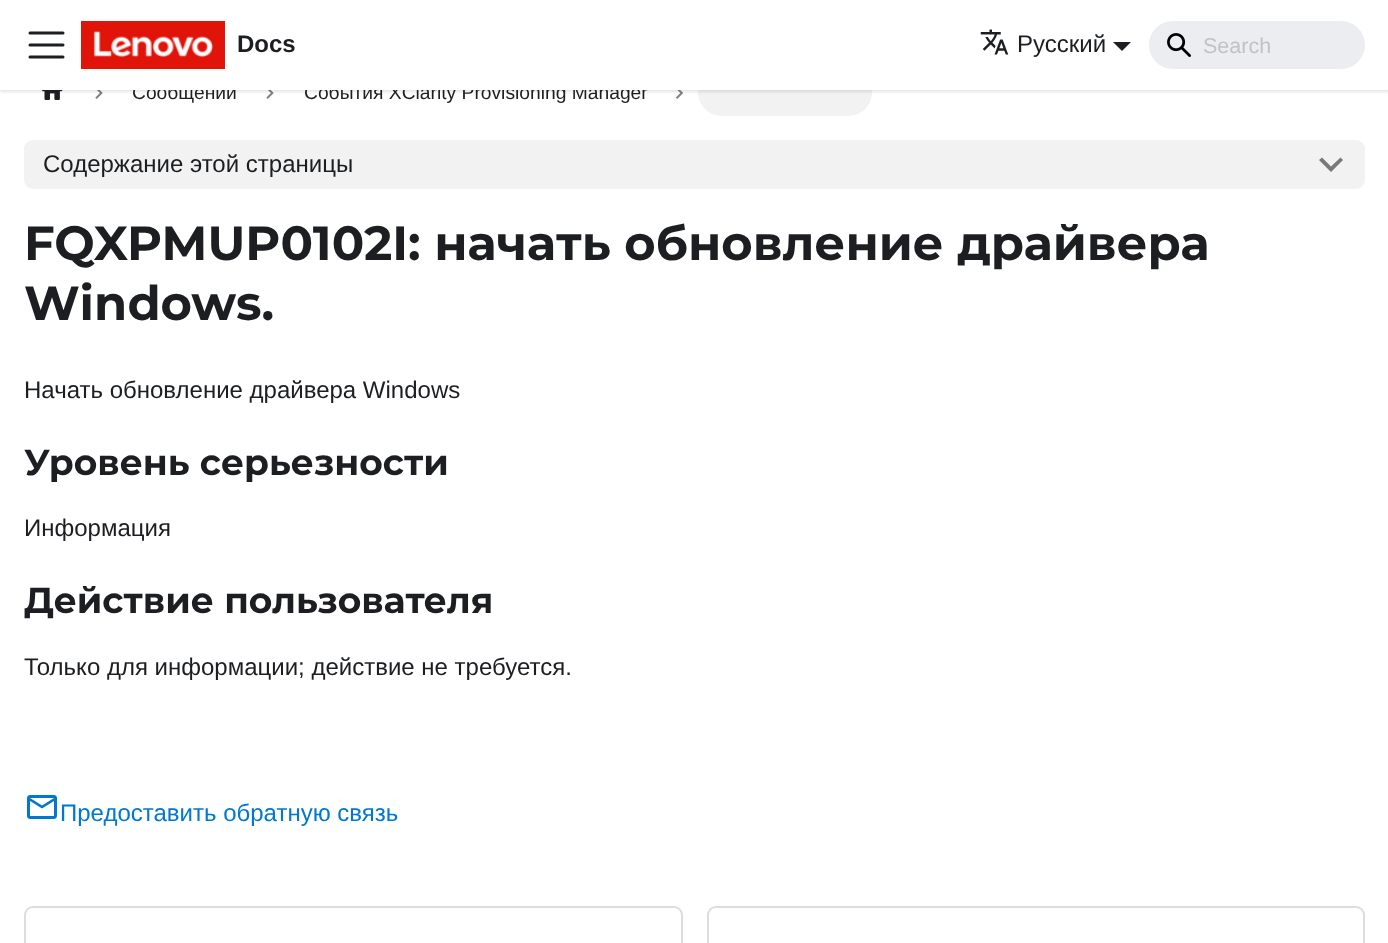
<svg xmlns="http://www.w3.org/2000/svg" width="1388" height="943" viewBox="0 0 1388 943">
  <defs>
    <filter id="blur1" x="-50%" y="-200%" width="200%" height="500%"><feGaussianBlur stdDeviation="1.5"/></filter>
  </defs>
  <rect width="100%" height="100%" fill="#ffffff"/>
  <image x="42" y="90" width="21" height="10" href="img4.png"/>
  <image x="95" y="90" width="8" height="9" href="img5.png"/>
  <image x="266" y="90" width="8" height="9" href="img5.png"/>
  <image x="675" y="90" width="8" height="9" href="img6.png"/>
  <rect x="698" y="69" width="174" height="47" rx="23.5" fill="#f2f2f2"/>
  <rect x="0" y="2" width="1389" height="90" fill="#000000" fill-opacity="0.1" filter="url(#blur1)"/>
  <text x="132" y="99" font-family="Liberation Sans" font-size="19.25" fill="#1c1e21">Сообщений</text>
  <text x="304" y="99" font-family="Liberation Sans" font-size="19.25" fill="#1c1e21">События XClarity Provisioning Manager</text>
  <rect x="0" y="0" width="1388" height="90" fill="#ffffff"/>
  <path d="M30 33H63M30 45H63M30 57H63" fill="none" stroke="#1c1e21" stroke-width="3" stroke-linecap="round"/>
  <image x="81" y="21" width="144" height="48" href="img1.png"/>
  <text x="237" y="52" font-family="Liberation Sans" font-size="24" font-weight="bold" fill="#1c1e21">Docs</text>
  <image x="980" y="29" width="29" height="26" href="img2.png"/>
  <text x="1017" y="52" font-family="Liberation Sans" font-size="24" fill="#1c1e21">Русский</text>
  <path d="M1113 42H1131L1122 51Z" fill="#1c1e21"/>
  <rect x="1149" y="21" width="216" height="48" rx="24" fill="#ebedf0"/>
  <image x="1167" y="33" width="24" height="24" href="img3.png"/>
  <text x="1203" y="53" font-family="Liberation Sans" font-size="21.5" fill="#bec3c9">Search</text>
  <rect x="24" y="140" width="1341" height="49" rx="9" fill="#f2f2f2"/>
  <text x="43" y="172" font-family="Liberation Sans" font-size="24" fill="#1c1e21">Содержание этой страницы</text>
  <path d="M1340.5 157.5L1331 166.5L1322 157.5L1319 160L1331 172L1343 160Z" fill="#797979"/>
  <text x="24" y="260" font-family="Montserrat" font-size="48" font-weight="bold" fill="#1c1e21">FQXPMUP0102I: начать обновление драйвера</text>
  <text x="24" y="320" font-family="Montserrat" font-size="48" font-weight="bold" fill="#1c1e21">Windows.</text>
  <text x="24" y="398" font-family="Liberation Sans" font-size="24" fill="#1c1e21">Начать обновление драйвера Windows</text>
  <text x="24" y="475" font-family="Montserrat" font-size="36" font-weight="bold" fill="#1c1e21">Уровень серьезности</text>
  <text x="24" y="536" font-family="Liberation Sans" font-size="24" fill="#1c1e21">Информация</text>
  <text x="24" y="613" font-family="Montserrat" font-size="36" font-weight="bold" fill="#1c1e21">Действие пользователя</text>
  <text x="24" y="675" font-family="Liberation Sans" font-size="24" fill="#1c1e21">Только для информации; действие не требуется.</text>
  <image x="27" y="795" width="30" height="24" href="img7.png"/>
  <text x="60" y="821" font-family="Liberation Sans" font-size="24" fill="#0078d0">Предоставить обратную связь</text>
  <rect x="25" y="907" width="657" height="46" rx="8" fill="none" stroke="#dadde1" stroke-width="2"/>
  <rect x="708" y="907" width="656" height="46" rx="8" fill="none" stroke="#dadde1" stroke-width="2"/>
</svg>
